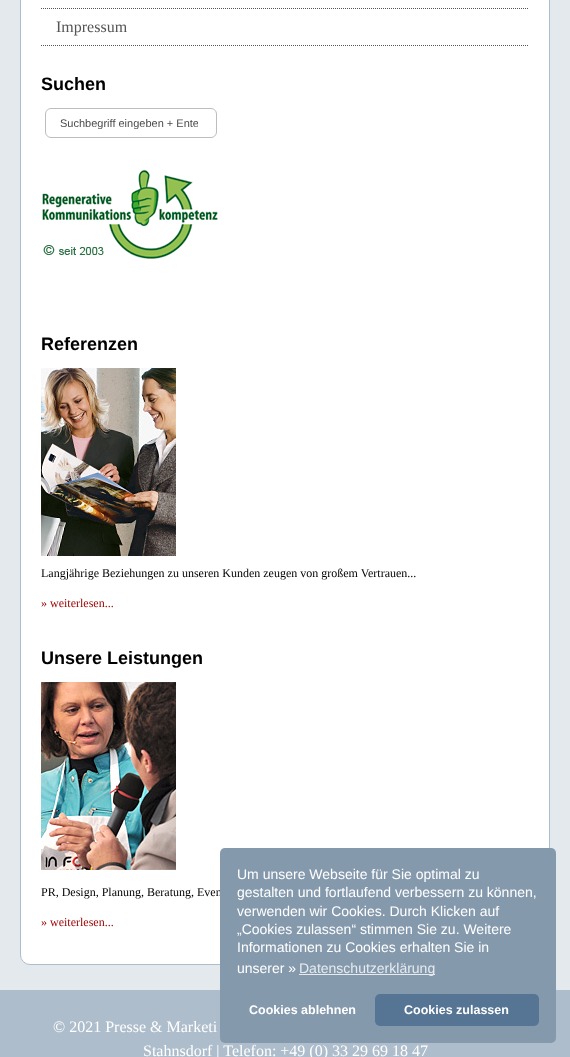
<svg xmlns="http://www.w3.org/2000/svg" width="570" height="1057" viewBox="0 0 570 1057">
  <defs>
    <clipPath id="clip1"><rect x="60" y="117" width="138" height="12"/></clipPath>
  </defs>
  <rect width="100%" height="100%" fill="#e4e9ee"/>
  <rect x="20.5" y="-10.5" width="529" height="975" rx="9.5" fill="#ffffff" stroke="#aebdcc"/>
  <path d="M41 8.5H529" fill="none" stroke="#555555" stroke-dasharray="1 1"/>
  <path d="M41 45.5H529" fill="none" stroke="#555555" stroke-dasharray="1 1"/>
  <text x="56" y="32" font-family="Liberation Serif" font-size="16" fill="#555555">Impressum</text>
  <text x="41" y="90" font-family="Liberation Sans" font-size="18" font-weight="bold" fill="#000000">Suchen</text>
  <rect x="45.5" y="108.5" width="171" height="29" rx="5.5" fill="none" stroke="#bdbdbd"/>
  <g clip-path="url(#clip1)">
    <text x="60" y="127" font-family="Liberation Sans" font-size="11" fill="#4b4b4b">Suchbegriff eingeben + Ente</text>
  </g>
  <image x="42" y="169" width="176" height="90" href="img1.png"/>
  <text x="41" y="350" font-family="Liberation Sans" font-size="18" font-weight="bold" fill="#000000">Referenzen</text>
  <image x="41" y="368" width="135" height="188" href="img2.png"/>
  <text x="41" y="577" font-family="Liberation Serif" font-size="12" fill="#000000">Langjährige Beziehungen zu unseren Kunden zeugen von großem Vertrauen...</text>
  <text x="41" y="607" font-family="Liberation Serif" font-size="12" fill="#990000">» weiterlesen...</text>
  <text x="41" y="664" font-family="Liberation Sans" font-size="18" font-weight="bold" fill="#000000">Unsere Leistungen</text>
  <image x="41" y="682" width="135" height="188" href="img3.png"/>
  <text x="41" y="896" font-family="Liberation Serif" font-size="12" fill="#000000">PR, Design, Planung, Beratung, Even</text>
  <text x="41" y="926" font-family="Liberation Serif" font-size="12" fill="#990000">» weiterlesen...</text>
  <rect x="0" y="990" width="570" height="67" fill="#aebdcc"/>
  <text x="53" y="1032" font-family="Liberation Serif" font-size="16" fill="#ffffff">© 2021 Presse &amp; Marketi</text>
  <text x="143" y="1056" font-family="Liberation Serif" font-size="16" fill="#ffffff">Stahnsdorf | Telefon: +49 (0) 33 29 69 18 47</text>
  <rect x="220" y="848" width="336" height="195" rx="5" fill="#8599ad"/>
  <text x="237" y="879" font-family="Liberation Sans" font-size="14" fill="#ffffff">Um unsere Webseite für Sie optimal zu</text>
  <text x="237" y="897" font-family="Liberation Sans" font-size="14" fill="#ffffff">gestalten und fortlaufend verbessern zu können,</text>
  <text x="237" y="916" font-family="Liberation Sans" font-size="14" fill="#ffffff">verwenden wir Cookies. Durch Klicken auf</text>
  <text x="237" y="934" font-family="Liberation Sans" font-size="14" fill="#ffffff">„Cookies zulassen“ stimmen Sie zu. Weitere</text>
  <text x="237" y="952" font-family="Liberation Sans" font-size="14" fill="#ffffff">Informationen zu Cookies erhalten Sie in</text>
  <text x="237" y="973" font-family="Liberation Sans" font-size="14" fill="#ffffff">unserer »</text>
  <rect x="299" y="974" width="136" height="1" fill="#e7ebef"/>
  <text x="299" y="973" font-family="Liberation Sans" font-size="14" fill="#e7ebef">Datenschutzerklärung</text>
  <text x="249" y="1014" font-family="Liberation Sans" font-size="12.5" font-weight="bold" fill="#ffffff">Cookies ablehnen</text>
  <rect x="375" y="994" width="164" height="32" rx="5" fill="#567594"/>
  <text x="404" y="1014" font-family="Liberation Sans" font-size="12.5" font-weight="bold" fill="#ffffff">Cookies zulassen</text>
</svg>
